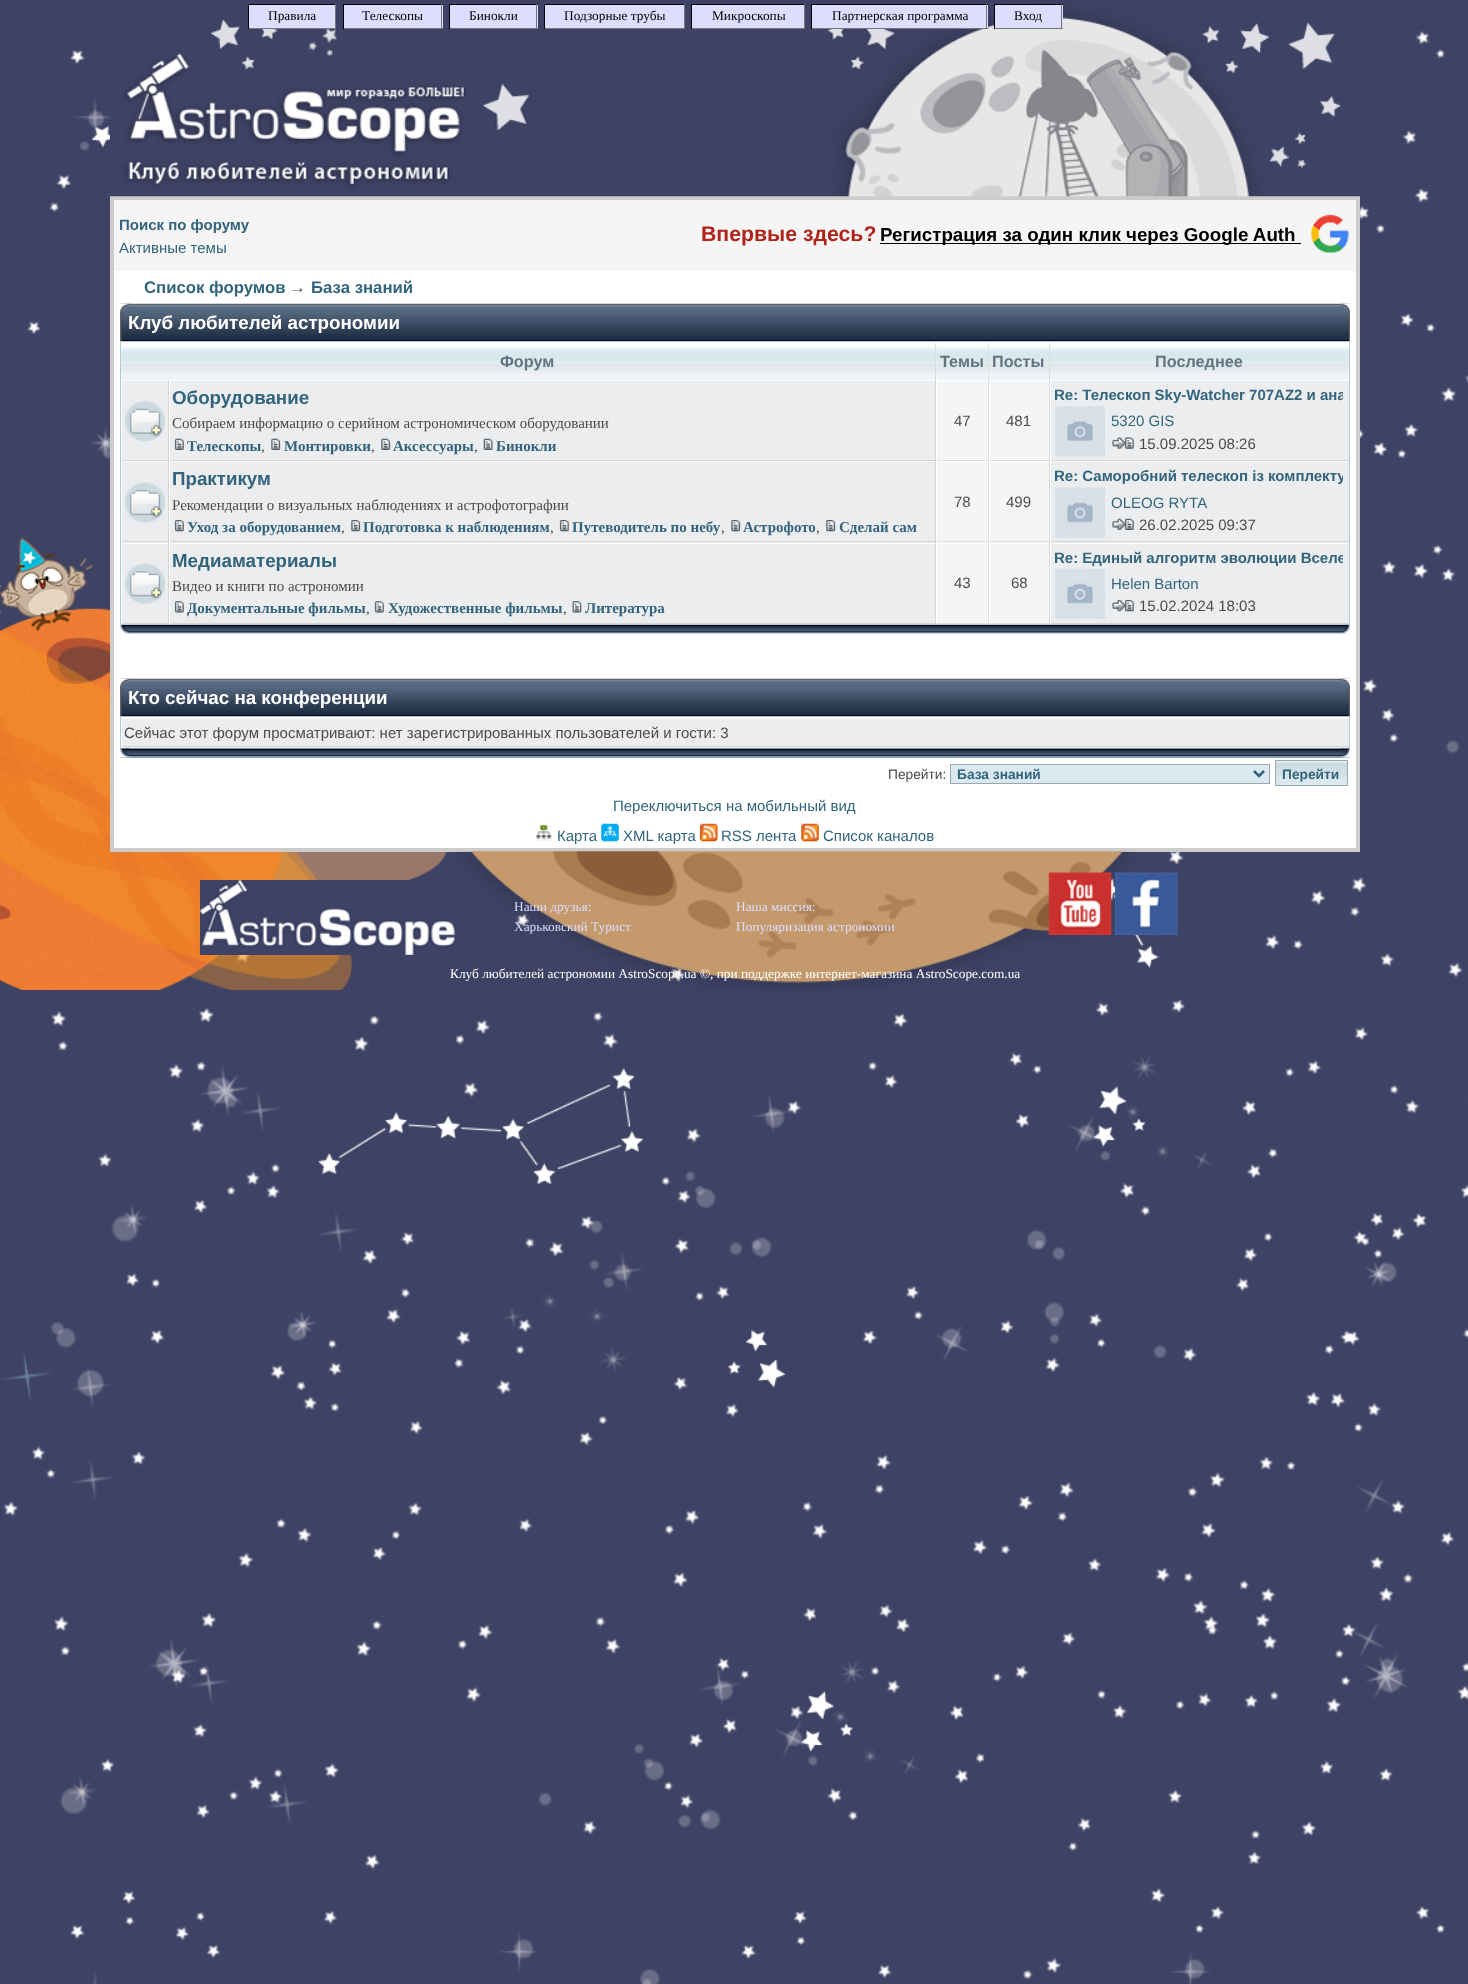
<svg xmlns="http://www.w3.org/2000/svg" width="1468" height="1984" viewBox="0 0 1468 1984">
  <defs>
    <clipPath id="clip1"><rect x="1054" y="384" width="289" height="74"/></clipPath>
    <clipPath id="clip2"><rect x="1054" y="465" width="289" height="74"/></clipPath>
    <clipPath id="clip3"><rect x="1054" y="546" width="289" height="74"/></clipPath>
  </defs>
  <rect width="100%" height="100%" fill="#ffffff"/>
  <image x="0" y="0" width="1468" height="1984" href="img1.png"/>
  <image x="0" y="537" width="447" height="453" href="img2.png"/>
  <rect x="114" y="271" width="1242" height="577" fill="#ffffff"/>
  <rect x="110" y="848" width="1250" height="4" fill="#cccccc"/>
  <rect x="110" y="196" width="4" height="652" fill="#cccccc"/>
  <rect x="114" y="196" width="1242" height="4" fill="#cccccc"/>
  <rect x="1356" y="196" width="4" height="652" fill="#cccccc"/>
  <image x="110" y="0" width="1250" height="197" href="img3.png"/>
  <rect x="249" y="5" width="86" height="23" fill="#ddddff"/>
  <rect x="248" y="4" width="88" height="1" fill="#000000"/>
  <rect x="335" y="4" width="1" height="25" fill="#777777"/>
  <rect x="248" y="28" width="88" height="1" fill="#777777"/>
  <rect x="248" y="4" width="1" height="25" fill="#000000"/>
  <text x="268" y="20" font-family="Liberation Serif" font-size="13.35" fill="#000000">Правила</text>
  <rect x="344" y="5" width="99" height="23" fill="#ddddff"/>
  <rect x="343" y="4" width="100" height="1" fill="#000000"/>
  <rect x="441" y="4" width="1" height="25" fill="#777777"/>
  <rect x="343" y="28" width="100" height="1" fill="#777777"/>
  <rect x="343" y="4" width="1" height="25" fill="#000000"/>
  <text x="362" y="20" font-family="Liberation Serif" font-size="13.35" fill="#000000">Телескопы</text>
  <rect x="450" y="5" width="88" height="23" fill="#ddddff"/>
  <rect x="449" y="4" width="89" height="1" fill="#000000"/>
  <rect x="536" y="4" width="1" height="25" fill="#777777"/>
  <rect x="449" y="28" width="89" height="1" fill="#777777"/>
  <rect x="449" y="4" width="1" height="25" fill="#000000"/>
  <text x="469" y="20" font-family="Liberation Serif" font-size="13.35" fill="#000000">Бинокли</text>
  <rect x="545" y="5" width="139" height="23" fill="#ddddff"/>
  <rect x="544" y="4" width="141" height="1" fill="#000000"/>
  <rect x="684" y="4" width="1" height="25" fill="#777777"/>
  <rect x="544" y="28" width="141" height="1" fill="#777777"/>
  <rect x="544" y="4" width="1" height="25" fill="#000000"/>
  <text x="564" y="20" font-family="Liberation Serif" font-size="13.35" fill="#000000">Подзорные трубы</text>
  <rect x="692" y="5" width="112" height="23" fill="#ddddff"/>
  <rect x="691" y="4" width="114" height="1" fill="#000000"/>
  <rect x="804" y="4" width="1" height="25" fill="#777777"/>
  <rect x="691" y="28" width="114" height="1" fill="#777777"/>
  <rect x="691" y="4" width="1" height="25" fill="#000000"/>
  <text x="712" y="20" font-family="Liberation Serif" font-size="13.35" fill="#000000">Микроскопы</text>
  <rect x="812" y="5" width="176" height="23" fill="#ddddff"/>
  <rect x="811" y="4" width="177" height="1" fill="#000000"/>
  <rect x="986" y="4" width="1" height="25" fill="#777777"/>
  <rect x="811" y="28" width="177" height="1" fill="#777777"/>
  <rect x="811" y="4" width="1" height="25" fill="#000000"/>
  <text x="832" y="20" font-family="Liberation Serif" font-size="13.35" fill="#000000">Партнерская программа</text>
  <rect x="995" y="5" width="68" height="23" fill="#ddddff"/>
  <rect x="994" y="4" width="69" height="1" fill="#000000"/>
  <rect x="1061" y="4" width="1" height="25" fill="#777777"/>
  <rect x="994" y="28" width="69" height="1" fill="#777777"/>
  <rect x="994" y="4" width="1" height="25" fill="#000000"/>
  <text x="1014" y="20" font-family="Liberation Serif" font-size="13.35" fill="#000000">Вход</text>
  <rect x="114" y="200" width="1242" height="71" fill="#f5f5f5"/>
  <text x="119" y="230" font-family="Liberation Sans" font-size="15" font-weight="bold" fill="#32647d">Поиск по форуму</text>
  <text x="119" y="253" font-family="Liberation Sans" font-size="15" fill="#32647d">Активные темы</text>
  <text x="701" y="241" font-family="Liberation Sans" font-size="21.25" font-weight="bold" fill="#af2319">Впервые здесь?</text>
  <rect x="880" y="243" width="421" height="1" fill="#000000"/>
  <text x="880" y="241" font-family="Liberation Sans" font-size="18.75" font-weight="bold" fill="#000000">Регистрация за один клик через Google Auth</text>
  <image x="1311" y="214" width="38" height="39" href="img4.png"/>
  <text x="144" y="293" font-family="Liberation Sans" font-size="16.75" font-weight="bold" fill="#32647d">Список форумов</text>
  <text x="289" y="293" font-family="Liberation Sans" font-size="16.75" font-weight="bold" fill="#4b4b4b">→</text>
  <text x="311" y="293" font-family="Liberation Sans" font-size="16.75" font-weight="bold" fill="#32647d">База знаний</text>
  <image x="120" y="303" width="1230" height="38" href="img5.png"/>
  <image x="120" y="303" width="10" height="38" href="img6.png"/>
  <image x="1341" y="303" width="9" height="38" href="img7.png"/>
  <text x="128" y="329" font-family="Liberation Sans" font-size="18.75" font-weight="bold" fill="#ffffff">Клуб любителей астрономии</text>
  <rect x="120.5" y="341.5" width="1229" height="283" fill="none" stroke="#afc8d2"/>
  <image x="121" y="343" width="816" height="37" href="img8.png"/>
  <rect x="935" y="343" width="1" height="37" fill="#d2e1e6"/>
  <text x="500" y="367" font-family="Liberation Sans" font-size="16.25" font-weight="bold" fill="#647382">Форум</text>
  <image x="936" y="343" width="52" height="37" href="img9.png"/>
  <rect x="988" y="343" width="1" height="37" fill="#d2e1e6"/>
  <text x="940" y="367" font-family="Liberation Sans" font-size="16.25" font-weight="bold" fill="#647382">Темы</text>
  <image x="988" y="343" width="61" height="37" href="img10.png"/>
  <rect x="1049" y="343" width="1" height="37" fill="#d2e1e6"/>
  <text x="992" y="367" font-family="Liberation Sans" font-size="16.25" font-weight="bold" fill="#647382">Посты</text>
  <image x="1050" y="343" width="299" height="37" href="img11.png"/>
  <text x="1155" y="367" font-family="Liberation Sans" font-size="16.25" font-weight="bold" fill="#647382">Последнее</text>
  <rect x="122" y="381" width="46" height="79" fill="#ebedef"/>
  <rect x="168" y="380" width="1" height="244" fill="#d3d5d7"/>
  <rect x="121" y="460" width="48" height="1" fill="#d3d5d7"/>
  <rect x="121" y="460" width="1" height="1" fill="#ffffff"/>
  <image x="125" y="401" width="40" height="41" href="img12.png"/>
  <rect x="170" y="381" width="765" height="79" fill="#ebedef"/>
  <rect x="935" y="380" width="1" height="244" fill="#d3d5d7"/>
  <rect x="169" y="460" width="767" height="1" fill="#d3d5d7"/>
  <rect x="169" y="460" width="1" height="1" fill="#ffffff"/>
  <text x="172" y="404" font-family="Liberation Sans" font-size="18.75" font-weight="bold" fill="#32647d">Оборудование</text>
  <text x="172" y="428" font-family="Liberation Serif" font-size="15" fill="#4b4b4b">Собираем информацию о серийном астрономическом оборудовании</text>
  <image x="174" y="438" width="10" height="12" href="img13.png"/>
  <text x="187" y="451" font-family="Liberation Serif" font-size="15" font-weight="bold" fill="#32647d">Телескопы</text>
  <text x="261" y="451" font-family="Liberation Serif" font-size="15" fill="#4b4b4b">,</text>
  <image x="271" y="438" width="10" height="12" href="img14.png"/>
  <text x="284" y="451" font-family="Liberation Serif" font-size="15" font-weight="bold" fill="#32647d">Монтировки</text>
  <text x="371" y="451" font-family="Liberation Serif" font-size="15" fill="#4b4b4b">,</text>
  <image x="381" y="438" width="10" height="12" href="img15.png"/>
  <text x="393" y="451" font-family="Liberation Serif" font-size="15" font-weight="bold" fill="#32647d">Аксессуары</text>
  <text x="474" y="451" font-family="Liberation Serif" font-size="15" fill="#4b4b4b">,</text>
  <image x="483" y="438" width="10" height="12" href="img16.png"/>
  <text x="496" y="451" font-family="Liberation Serif" font-size="15" font-weight="bold" fill="#32647d">Бинокли</text>
  <rect x="937" y="381" width="51" height="79" fill="#f3f5f7"/>
  <rect x="988" y="380" width="1" height="244" fill="#dadcde"/>
  <rect x="936" y="460" width="53" height="1" fill="#dadcde"/>
  <rect x="936" y="460" width="1" height="1" fill="#ffffff"/>
  <text x="954" y="426" font-family="Liberation Sans" font-size="15" fill="#4b4b4b">47</text>
  <rect x="990" y="381" width="59" height="79" fill="#f3f5f7"/>
  <rect x="1049" y="380" width="1" height="244" fill="#dadcde"/>
  <rect x="989" y="460" width="61" height="1" fill="#dadcde"/>
  <rect x="989" y="460" width="1" height="1" fill="#ffffff"/>
  <text x="1006" y="426" font-family="Liberation Sans" font-size="15" fill="#4b4b4b">481</text>
  <rect x="1051" y="381" width="298" height="79" fill="#ebedef"/>
  <rect x="1050" y="460" width="299" height="1" fill="#d3d5d7"/>
  <rect x="1050" y="460" width="1" height="1" fill="#ffffff"/>
  <g clip-path="url(#clip1)">
    <text x="1054" y="400" font-family="Liberation Sans" font-size="15" font-weight="bold" fill="#32647d">Re: Телескоп Sky-Watcher 707AZ2 и ана</text>
  </g>
  <image x="1055" y="406" width="50" height="51" href="img17.png"/>
  <text x="1111" y="426" font-family="Liberation Sans" font-size="15" fill="#32647d">5320 GIS</text>
  <image x="1112" y="437" width="22" height="12" href="img18.png"/>
  <text x="1139" y="449" font-family="Liberation Sans" font-size="15" fill="#4b4b4b">15.09.2025 08:26</text>
  <rect x="122" y="462" width="46" height="81" fill="#ebedef"/>
  <rect x="121" y="541" width="48" height="1" fill="#d3d5d7"/>
  <rect x="121" y="541" width="1" height="2" fill="#ffffff"/>
  <image x="125" y="482" width="40" height="41" href="img19.png"/>
  <rect x="170" y="462" width="765" height="81" fill="#ebedef"/>
  <rect x="169" y="541" width="767" height="1" fill="#d3d5d7"/>
  <rect x="169" y="541" width="1" height="2" fill="#ffffff"/>
  <text x="172" y="485" font-family="Liberation Sans" font-size="18.75" font-weight="bold" fill="#32647d">Практикум</text>
  <text x="172" y="510" font-family="Liberation Serif" font-size="15" fill="#4b4b4b">Рекомендации о визуальных наблюдениях и астрофотографии</text>
  <image x="174" y="520" width="10" height="12" href="img20.png"/>
  <text x="187" y="532" font-family="Liberation Serif" font-size="15" font-weight="bold" fill="#32647d">Уход за оборудованием</text>
  <text x="341" y="532" font-family="Liberation Serif" font-size="15" fill="#4b4b4b">,</text>
  <image x="351" y="520" width="10" height="12" href="img21.png"/>
  <text x="363" y="532" font-family="Liberation Serif" font-size="15" font-weight="bold" fill="#32647d">Подготовка к наблюдениям</text>
  <text x="550" y="532" font-family="Liberation Serif" font-size="15" fill="#4b4b4b">,</text>
  <image x="559" y="520" width="10" height="12" href="img22.png"/>
  <text x="572" y="532" font-family="Liberation Serif" font-size="15" font-weight="bold" fill="#32647d">Путеводитель по небу</text>
  <text x="721" y="532" font-family="Liberation Serif" font-size="15" fill="#4b4b4b">,</text>
  <image x="731" y="520" width="10" height="12" href="img21.png"/>
  <text x="743" y="532" font-family="Liberation Serif" font-size="15" font-weight="bold" fill="#32647d">Астрофото</text>
  <text x="816" y="532" font-family="Liberation Serif" font-size="15" fill="#4b4b4b">,</text>
  <image x="826" y="520" width="10" height="12" href="img21.png"/>
  <text x="839" y="532" font-family="Liberation Serif" font-size="15" font-weight="bold" fill="#32647d">Сделай сам</text>
  <rect x="937" y="462" width="51" height="81" fill="#f3f5f7"/>
  <rect x="936" y="541" width="53" height="1" fill="#dadcde"/>
  <rect x="936" y="541" width="1" height="2" fill="#ffffff"/>
  <text x="954" y="507" font-family="Liberation Sans" font-size="15" fill="#4b4b4b">78</text>
  <rect x="990" y="462" width="59" height="81" fill="#f3f5f7"/>
  <rect x="989" y="541" width="61" height="1" fill="#dadcde"/>
  <rect x="989" y="541" width="1" height="2" fill="#ffffff"/>
  <text x="1006" y="507" font-family="Liberation Sans" font-size="15" fill="#4b4b4b">499</text>
  <rect x="1051" y="462" width="298" height="81" fill="#ebedef"/>
  <rect x="1050" y="541" width="299" height="1" fill="#d3d5d7"/>
  <rect x="1050" y="541" width="1" height="2" fill="#ffffff"/>
  <g clip-path="url(#clip2)">
    <text x="1054" y="481" font-family="Liberation Sans" font-size="15" font-weight="bold" fill="#32647d">Re: Саморобний телескоп із комплекту</text>
  </g>
  <image x="1055" y="487" width="50" height="51" href="img23.png"/>
  <text x="1111" y="508" font-family="Liberation Sans" font-size="15" fill="#32647d">OLEOG RYTA</text>
  <image x="1112" y="518" width="22" height="12" href="img24.png"/>
  <text x="1139" y="530" font-family="Liberation Sans" font-size="15" fill="#4b4b4b">26.02.2025 09:37</text>
  <rect x="122" y="544" width="46" height="79" fill="#ebedef"/>
  <rect x="121" y="623" width="815" height="1" fill="#d3d5d7"/>
  <rect x="121" y="623" width="1" height="1" fill="#ffffff"/>
  <image x="125" y="563" width="40" height="41" href="img25.png"/>
  <rect x="1051" y="544" width="298" height="79" fill="#ebedef"/>
  <rect x="1050" y="623" width="299" height="1" fill="#d3d5d7"/>
  <rect x="1050" y="623" width="1" height="1" fill="#ffffff"/>
  <g clip-path="url(#clip3)">
    <text x="1054" y="563" font-family="Liberation Sans" font-size="15" font-weight="bold" fill="#32647d">Re: Единый алгоритм эволюции Вселе</text>
  </g>
  <image x="1055" y="568" width="50" height="51" href="img26.png"/>
  <text x="1111" y="589" font-family="Liberation Sans" font-size="15" fill="#32647d">Helen Barton</text>
  <image x="1112" y="600" width="22" height="12" href="img27.png"/>
  <text x="1139" y="611" font-family="Liberation Sans" font-size="15" fill="#4b4b4b">15.02.2024 18:03</text>
  <rect x="170" y="544" width="765" height="79" fill="#ebedef"/>
  <rect x="169" y="623" width="1" height="1" fill="#ffffff"/>
  <text x="172" y="567" font-family="Liberation Sans" font-size="18.75" font-weight="bold" fill="#32647d">Медиаматериалы</text>
  <text x="172" y="591" font-family="Liberation Serif" font-size="15" fill="#4b4b4b">Видео и книги по астрономии</text>
  <image x="174" y="601" width="10" height="12" href="img28.png"/>
  <text x="187" y="613" font-family="Liberation Serif" font-size="15" font-weight="bold" fill="#32647d">Документальные фильмы</text>
  <text x="366" y="613" font-family="Liberation Serif" font-size="15" fill="#4b4b4b">,</text>
  <image x="374" y="601" width="10" height="12" href="img29.png"/>
  <text x="388" y="613" font-family="Liberation Serif" font-size="15" font-weight="bold" fill="#32647d">Художественные фильмы</text>
  <text x="563" y="613" font-family="Liberation Serif" font-size="15" fill="#4b4b4b">,</text>
  <image x="572" y="601" width="10" height="12" href="img30.png"/>
  <text x="585" y="613" font-family="Liberation Serif" font-size="15" font-weight="bold" fill="#32647d">Литература</text>
  <rect x="937" y="544" width="51" height="79" fill="#f3f5f7"/>
  <rect x="936" y="623" width="114" height="1" fill="#dadcde"/>
  <rect x="936" y="623" width="1" height="1" fill="#ffffff"/>
  <text x="954" y="588" font-family="Liberation Sans" font-size="15" fill="#4b4b4b">43</text>
  <rect x="990" y="544" width="59" height="79" fill="#f3f5f7"/>
  <rect x="989" y="623" width="1" height="1" fill="#ffffff"/>
  <text x="1011" y="588" font-family="Liberation Sans" font-size="15" fill="#4b4b4b">68</text>
  <image x="120" y="625" width="1230" height="9" href="img31.png"/>
  <image x="120" y="625" width="10" height="9" href="img32.png"/>
  <image x="1341" y="625" width="9" height="9" href="img33.png"/>
  <image x="120" y="678" width="1230" height="38" href="img5.png"/>
  <image x="120" y="678" width="10" height="38" href="img6.png"/>
  <image x="1341" y="678" width="9" height="38" href="img7.png"/>
  <text x="128" y="704" font-family="Liberation Sans" font-size="18.75" font-weight="bold" fill="#ffffff">Кто сейчас на конференции</text>
  <rect x="120.5" y="716.5" width="1229" height="32" fill="none" stroke="#afc8d2"/>
  <rect x="122" y="719" width="1227" height="29" fill="#ebedef"/>
  <rect x="121" y="746" width="1228" height="1" fill="#d3d5d7"/>
  <rect x="121" y="746" width="1" height="2" fill="#ffffff"/>
  <text x="124" y="738" font-family="Liberation Sans" font-size="15" fill="#4b4b4b">Сейчас этот форум просматривают: нет зарегистрированных пользователей и гости: 3</text>
  <rect x="120" y="757" width="1230" height="1" fill="#5a788c"/>
  <image x="120" y="748" width="1230" height="10" href="img34.png"/>
  <image x="120" y="748" width="10" height="10" href="img35.png"/>
  <image x="1341" y="748" width="9" height="10" href="img36.png"/>
  <text x="888" y="779" font-family="Liberation Sans" font-size="13.75" fill="#4b4b4b">Перейти:</text>
  <rect x="950.5" y="764.5" width="319" height="19" fill="#dbe8ef" stroke="#96aab4"/>
  <path d="M1254 771L1259 776L1264 771" fill="none" stroke="#32647d" stroke-width="2.5"/>
  <text x="957" y="779" font-family="Liberation Sans" font-size="13.75" font-weight="bold" fill="#32647d">База знаний</text>
  <rect x="1276" y="761" width="71" height="24" fill="#dbe8ef"/>
  <image x="1276" y="761" width="71" height="17" href="img37.png"/>
  <rect x="1275.5" y="760.5" width="72" height="25" fill="none" stroke="#96aab4"/>
  <text x="1282" y="779" font-family="Liberation Sans" font-size="13.75" font-weight="bold" fill="#32647d">Перейти</text>
  <text x="613" y="811" font-family="Liberation Sans" font-size="15" fill="#32647d">Переключиться на мобильный вид</text>
  <image x="536" y="824" width="16" height="17" href="img38.png"/>
  <text x="557" y="841" font-family="Liberation Sans" font-size="15" fill="#32647d">Карта</text>
  <image x="601" y="823" width="18" height="19" href="img39.png"/>
  <text x="623" y="841" font-family="Liberation Sans" font-size="15" fill="#32647d">XML карта</text>
  <image x="700" y="823" width="18" height="19" href="img40.png"/>
  <text x="721" y="841" font-family="Liberation Sans" font-size="15" fill="#32647d">RSS лента</text>
  <image x="801" y="823" width="18" height="19" href="img41.png"/>
  <text x="823" y="841" font-family="Liberation Sans" font-size="15" fill="#32647d">Список каналов</text>
  <image x="456" y="851" width="680" height="139" href="img42.png"/>
  <image x="200" y="880" width="255" height="75" href="img43.png"/>
  <text x="514" y="911" font-family="Liberation Serif" font-size="13.35" fill="#ddddff">Наши друзья:</text>
  <text x="514" y="931" font-family="Liberation Serif" font-size="13.35" fill="#ddddff">Харьковский Турист</text>
  <text x="736" y="911" font-family="Liberation Serif" font-size="13.35" fill="#ddddff">Наша миссия:</text>
  <text x="736" y="931" font-family="Liberation Serif" font-size="13.35" fill="#ddddff">Популяризация астрономии</text>
  <image x="1048" y="872" width="64" height="63" href="img44.png"/>
  <image x="1115" y="872" width="63" height="63" href="img45.png"/>
  <text x="450" y="978" font-family="Liberation Serif" font-size="13.35" fill="#ffffff">Клуб любителей астрономии AstroScope.ua ©, при поддержке интернет-магазина AstroScope.com.ua</text>
</svg>
